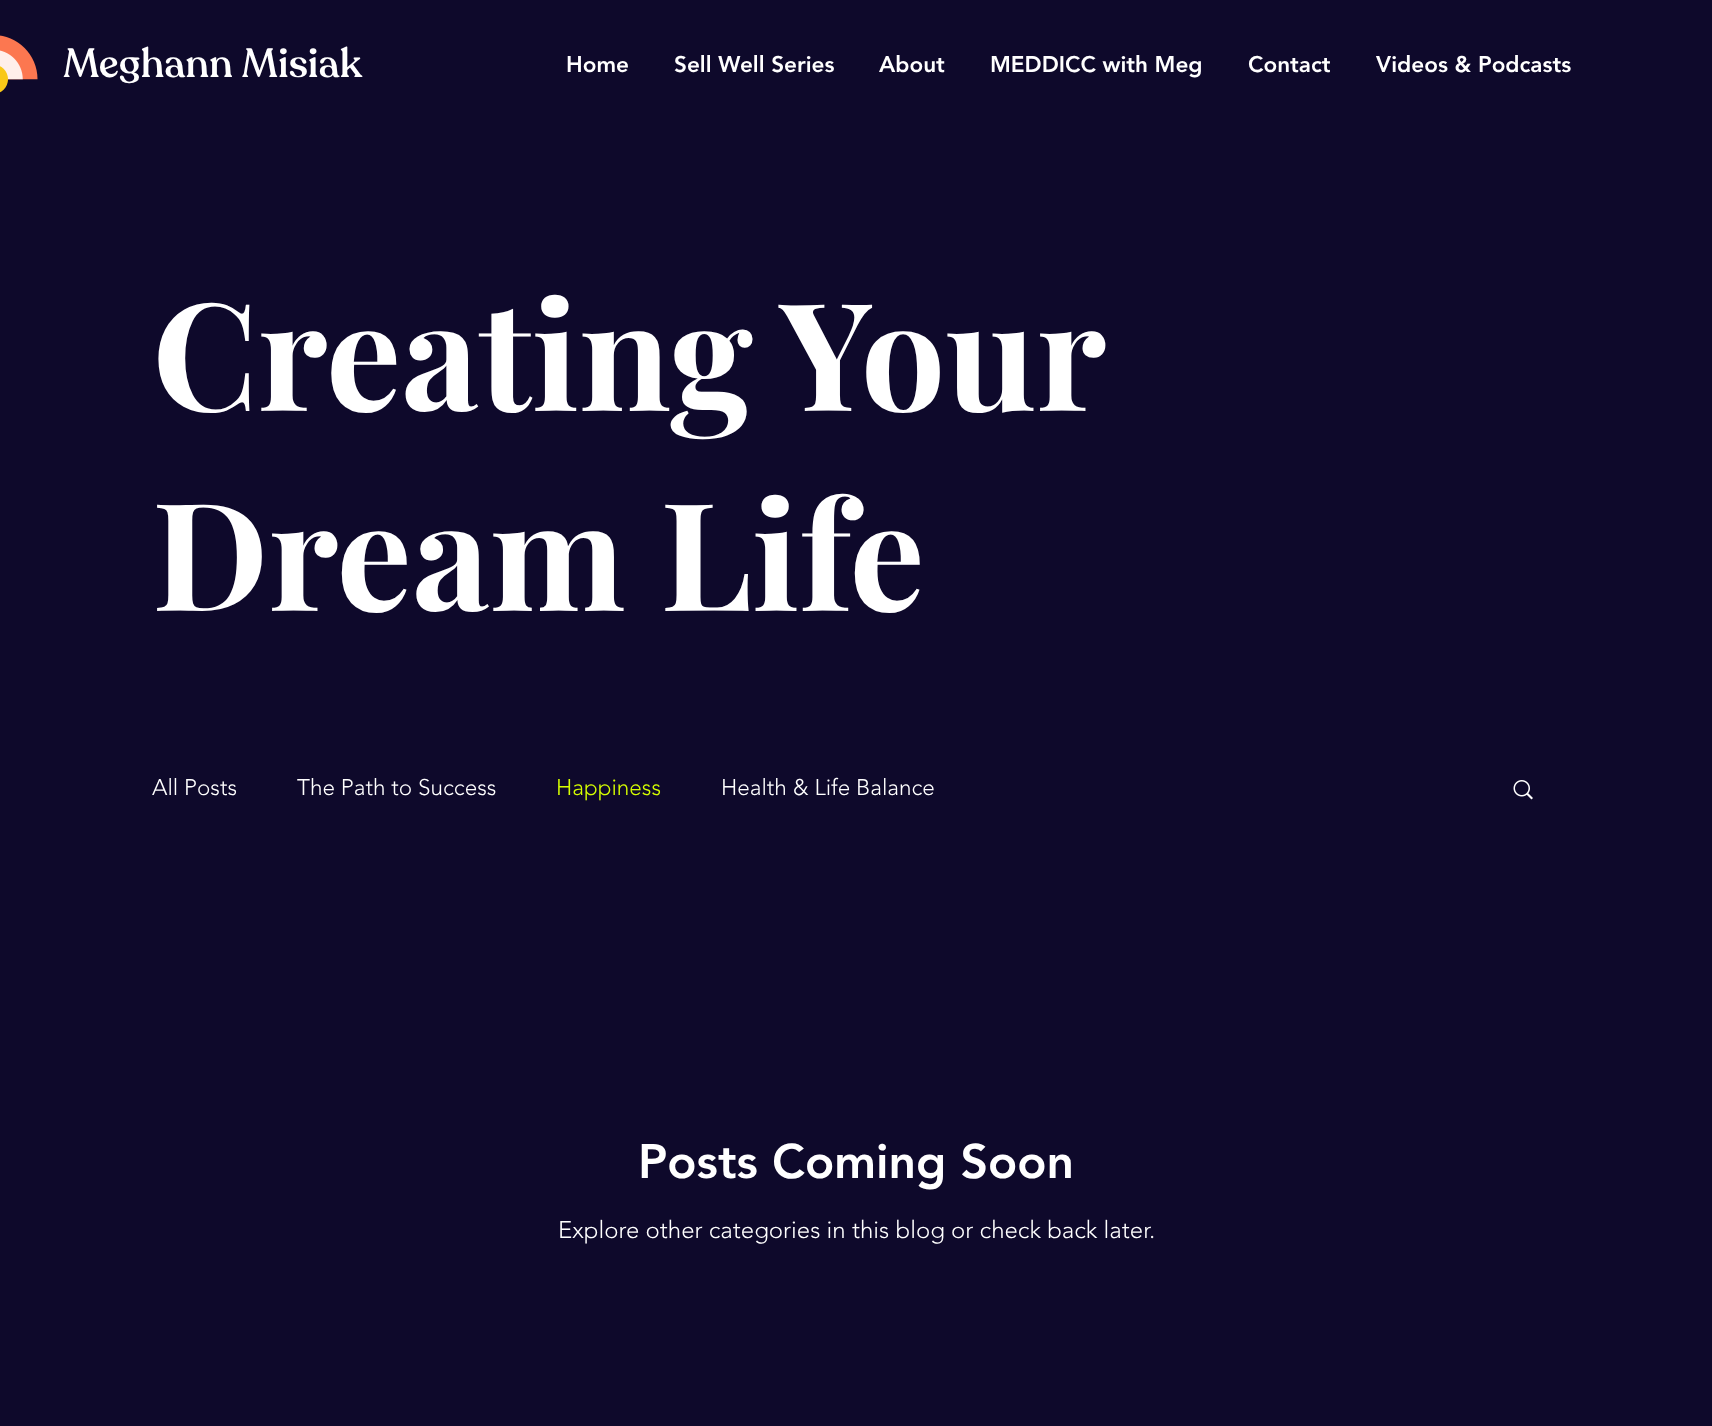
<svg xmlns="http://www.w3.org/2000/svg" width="1712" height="1426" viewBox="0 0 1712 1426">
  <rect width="100%" height="100%" fill="#0e092b"/>
  <image x="0" y="35" width="38" height="58" href="img1.png"/>
  <text x="63" y="77" font-family="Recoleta" font-size="40.5" font-weight="500" fill="#ffffff">Meghann Misiak</text>
  <text x="566" y="72" font-family="'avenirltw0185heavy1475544'" font-size="22.5" font-weight="900" fill="#ffffff">Home</text>
  <text x="674" y="72" font-family="'avenirltw0185heavy1475544'" font-size="22.5" font-weight="900" fill="#ffffff">Sell Well Series</text>
  <text x="879" y="72" font-family="'avenirltw0185heavy1475544'" font-size="22.5" font-weight="900" fill="#ffffff">About</text>
  <text x="990" y="72" font-family="'avenirltw0185heavy1475544'" font-size="22.5" font-weight="900" fill="#ffffff">MEDDICC with Meg</text>
  <text x="1248" y="72" font-family="'avenirltw0185heavy1475544'" font-size="22.5" font-weight="900" fill="#ffffff">Contact</text>
  <text x="1376" y="72" font-family="'avenirltw0185heavy1475544'" font-size="22.5" font-weight="900" fill="#ffffff">Videos &amp; Podcasts</text>
  <text x="152" y="411" word-spacing="-3" font-family="Playfair Display" font-size="150" font-weight="bold" fill="#ffffff">Creating Your</text>
  <text x="152" y="611" font-family="Playfair Display" font-size="150" font-weight="bold" fill="#ffffff">Dream Life</text>
  <text x="152" y="795" font-family="'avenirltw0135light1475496'" font-size="22.5" font-weight="300" fill="#ffffff">All Posts</text>
  <text x="297" y="795" font-family="'avenirltw0135light1475496'" font-size="22.5" font-weight="300" fill="#ffffff">The Path to Success</text>
  <text x="556" y="795" font-family="'avenirltw0135light1475496'" font-size="22.5" font-weight="300" fill="#d6ff00">Happiness</text>
  <text x="721" y="795" font-family="'avenirltw0135light1475496'" font-size="22.5" font-weight="300" fill="#ffffff">Health &amp; Life Balance</text>
  <image x="1513" y="780" width="20" height="20" href="img2.png"/>
  <text x="638" y="1178" font-family="'avenirltw0185heavy1475544'" font-size="48" font-weight="900" fill="#ffffff">Posts Coming Soon</text>
  <text x="558" y="1238" font-family="'avenirltw0135light1475496'" font-size="24" font-weight="300" fill="#ffffff">Explore other categories in this blog or check back later.</text>
</svg>
